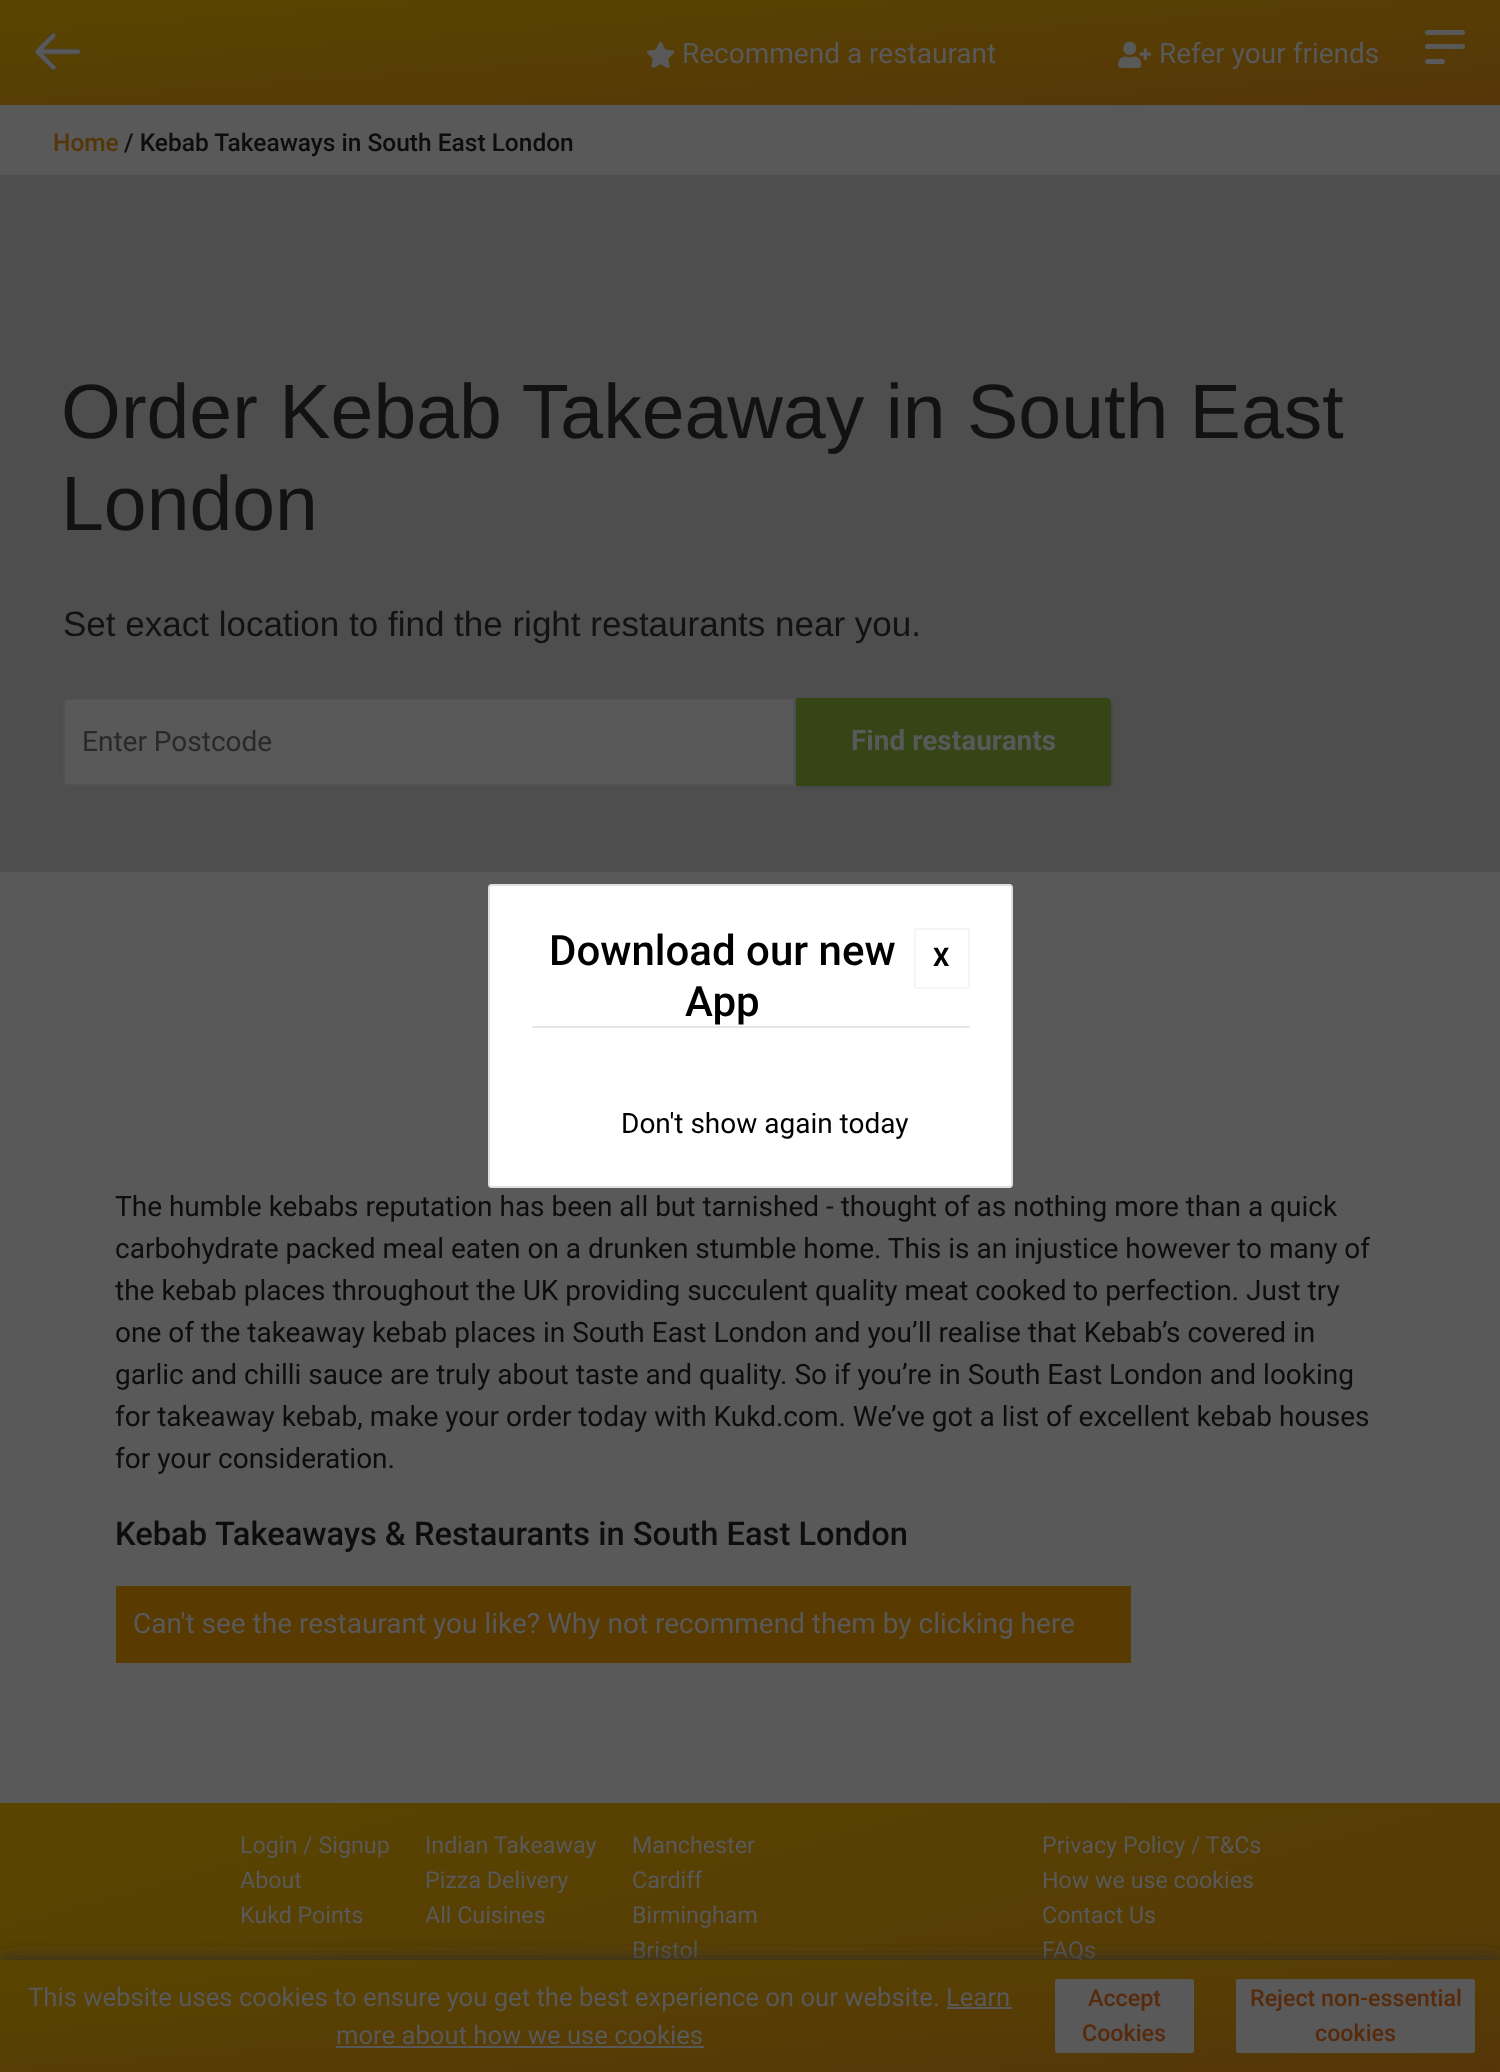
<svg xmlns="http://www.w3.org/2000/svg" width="1500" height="2072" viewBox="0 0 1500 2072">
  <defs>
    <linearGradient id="g1" gradientUnits="userSpaceOnUse" x1="743" y1="-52" x2="758" y2="157"><stop offset="0" stop-color="#594500"/><stop offset="1" stop-color="#553609"/></linearGradient>
    <filter id="blur1" x="-50%" y="-200%" width="200%" height="500%"><feGaussianBlur stdDeviation="2"/></filter>
    <linearGradient id="g2" gradientUnits="userSpaceOnUse" x1="643" y1="1623" x2="859" y2="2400"><stop offset="0" stop-color="#594500"/><stop offset="1" stop-color="#553609"/></linearGradient>
    <filter id="blur2" x="-50%" y="-200%" width="200%" height="500%"><feGaussianBlur stdDeviation="9"/></filter>
    <linearGradient id="g3" gradientUnits="userSpaceOnUse" x1="742" y1="1905" x2="759" y2="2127"><stop offset="0" stop-color="#594500"/><stop offset="1" stop-color="#553609"/></linearGradient>
  </defs>
  <rect width="100%" height="100%" fill="#595959"/>
  <rect x="0" y="0" width="1500" height="105" fill="url(#g1)"/>
  <image x="35" y="32" width="46" height="39" href="img1.png"/>
  <image x="646" y="41" width="29" height="27" href="img2.png"/>
  <text x="682" y="63" font-family="Roboto" font-size="28" fill="#595959">Recommend a restaurant</text>
  <image x="1118" y="41" width="34" height="27" href="img3.png"/>
  <text x="1159" y="63" font-family="Roboto" font-size="28" fill="#595959">Refer your friends</text>
  <rect x="1425" y="30" width="40" height="5" rx="2.5" fill="#595959"/>
  <rect x="1425" y="44" width="40" height="5" rx="2.5" fill="#595959"/>
  <rect x="1425" y="59" width="20" height="5" rx="2.5" fill="#595959"/>
  <text x="53" y="151" font-family="Roboto" font-size="24.5" font-weight="500" fill="#553609">Home</text>
  <text x="124" y="151" font-family="Roboto" font-size="24.5" font-weight="500" fill="#0c0d0e">/ Kebab Takeaways in South East London</text>
  <rect x="0" y="175" width="1500" height="697" fill="#4e4e4e"/>
  <text x="61" y="438" font-family="Liberation Sans" font-size="77" fill="#121212">Order Kebab Takeaway in South East</text>
  <text x="61" y="530" font-family="Liberation Sans" font-size="77" fill="#121212">London</text>
  <text x="63" y="636" font-family="Liberation Sans" font-size="35" fill="#121212">Set exact location to find the right restaurants near you.</text>
  <path d="M67 699H794V785H67C65.5 785 64 783.5 64 782V702C64 700.5 65.5 699 67 699Z" fill="#595959" stroke="#515151" stroke-width="2"/>
  <text x="82" y="751" font-family="Roboto" font-size="28" fill="#292929">Enter Postcode</text>
  <rect x="800" y="702" width="311" height="84" rx="2" fill="#3b3b3b" filter="url(#blur1)"/>
  <path d="M796 698H1107C1109 698 1111 700 1111 702V782C1111 784 1109 786 1107 786H796Z" fill="#364515"/>
  <text x="851" y="750" font-family="Roboto" font-size="28" font-weight="bold" fill="#595959">Find restaurants</text>
  <rect x="488" y="884" width="525" height="304" rx="4" fill="#ffffff"/>
  <rect x="489" y="885" width="523" height="302" rx="3" fill="none" stroke="#000000" stroke-opacity="0.12" stroke-width="2"/>
  <text x="549" y="965" font-family="Roboto" font-size="42" font-weight="500" fill="#000000">Download our new</text>
  <text x="685" y="1016" font-family="Roboto" font-size="42" font-weight="500" fill="#000000">App</text>
  <rect x="915" y="929" width="54" height="59" rx="1" fill="none" stroke="#f5f5f5" stroke-width="2"/>
  <text x="933" y="966" font-family="Roboto" font-size="25.65" font-weight="bold" fill="#000000">X</text>
  <rect x="532" y="1026" width="438" height="2" fill="#e6e6e6"/>
  <text x="621" y="1133" font-family="Roboto" font-size="28" fill="#000000">Don't show again today</text>
  <text x="115" y="1216" font-family="Roboto" font-size="28" fill="#0c0d0e">The humble kebabs reputation has been all but tarnished - thought of as nothing more than a quick</text>
  <text x="115" y="1258" font-family="Roboto" font-size="28" fill="#0c0d0e">carbohydrate packed meal eaten on a drunken stumble home. This is an injustice however to many of</text>
  <text x="115" y="1300" font-family="Roboto" font-size="28" fill="#0c0d0e">the kebab places throughout the UK providing succulent quality meat cooked to perfection. Just try</text>
  <text x="115" y="1342" font-family="Roboto" font-size="28" fill="#0c0d0e">one of the takeaway kebab places in South East London and you’ll realise that Kebab’s covered in</text>
  <text x="115" y="1384" font-family="Roboto" font-size="28" fill="#0c0d0e">garlic and chilli sauce are truly about taste and quality. So if you’re in South East London and looking</text>
  <text x="115" y="1426" font-family="Roboto" font-size="28" fill="#0c0d0e">for takeaway kebab, make your order today with Kukd.com. We’ve got a list of excellent kebab houses</text>
  <text x="115" y="1468" font-family="Roboto" font-size="28" fill="#0c0d0e">for your consideration.</text>
  <text x="115" y="1545" font-family="Roboto" font-size="32.7" font-weight="500" fill="#0c0d0e">Kebab</text>
  <text x="215" y="1545" font-family="Roboto" font-size="32.7" font-weight="500" fill="#0c0d0e">Takeaways &amp; Restaurants in South East London</text>
  <rect x="116" y="1586" width="1015" height="77" fill="#593a00"/>
  <text x="133" y="1633" font-family="Roboto" font-size="28" fill="#595959">Can't see the restaurant you like? Why not recommend them by clicking here</text>
  <rect x="0" y="1803" width="1500" height="157" fill="url(#g2)"/>
  <text x="240" y="1853" font-family="Roboto" font-size="23.25" fill="#595959">Login / Signup</text>
  <text x="240" y="1888" font-family="Roboto" font-size="23.25" fill="#595959">About</text>
  <text x="240" y="1923" font-family="Roboto" font-size="23.25" fill="#595959">Kukd Points</text>
  <text x="425" y="1853" font-family="Roboto" font-size="23.25" fill="#595959">Indian Takeaway</text>
  <text x="425" y="1888" font-family="Roboto" font-size="23.25" fill="#595959">Pizza Delivery</text>
  <text x="425" y="1923" font-family="Roboto" font-size="23.25" fill="#595959">All Cuisines</text>
  <text x="632" y="1853" font-family="Roboto" font-size="23.25" fill="#595959">Manchester</text>
  <text x="632" y="1888" font-family="Roboto" font-size="23.25" fill="#595959">Cardiff</text>
  <text x="632" y="1923" font-family="Roboto" font-size="23.25" fill="#595959">Birmingham</text>
  <text x="632" y="1958" font-family="Roboto" font-size="23.25" fill="#595959">Bristol</text>
  <text x="1042" y="1853" font-family="Roboto" font-size="23.25" fill="#595959">Privacy Policy / T&amp;Cs</text>
  <text x="1042" y="1888" font-family="Roboto" font-size="23.25" fill="#595959">How we use cookies</text>
  <text x="1042" y="1923" font-family="Roboto" font-size="23.25" fill="#595959">Contact Us</text>
  <text x="1042" y="1958" font-family="Roboto" font-size="23.25" fill="#595959">FAQs</text>
  <rect x="0" y="1960" width="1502" height="112" fill="#2d2d2d" filter="url(#blur2)"/>
  <rect x="0" y="1960" width="1500" height="112" fill="url(#g3)"/>
  <text x="28" y="2006" font-family="Roboto" font-size="25.65" fill="#595959">This website uses cookies to ensure you get the best experience on our website. Learn</text>
  <text x="336" y="2044" font-family="Roboto" font-size="25.65" fill="#595959">more about how we use cookies</text>
  <rect x="947" y="2007" width="65" height="2" fill="#595959"/>
  <rect x="336" y="2046" width="368" height="2" fill="#595959"/>
  <rect x="1055" y="1979" width="139" height="74" rx="2" fill="#595959"/>
  <text x="1088" y="2006" font-family="Roboto" font-size="23.25" font-weight="500" fill="#582a0c">Accept</text>
  <text x="1082" y="2041" font-family="Roboto" font-size="23.25" font-weight="500" fill="#582a0c">Cookies</text>
  <rect x="1236" y="1979" width="239" height="74" rx="2" fill="#595959"/>
  <text x="1250" y="2006" font-family="Roboto" font-size="23.25" font-weight="500" fill="#582a0c">Reject non-essential</text>
  <text x="1315" y="2041" font-family="Roboto" font-size="23.25" font-weight="500" fill="#582a0c">cookies</text>
</svg>
